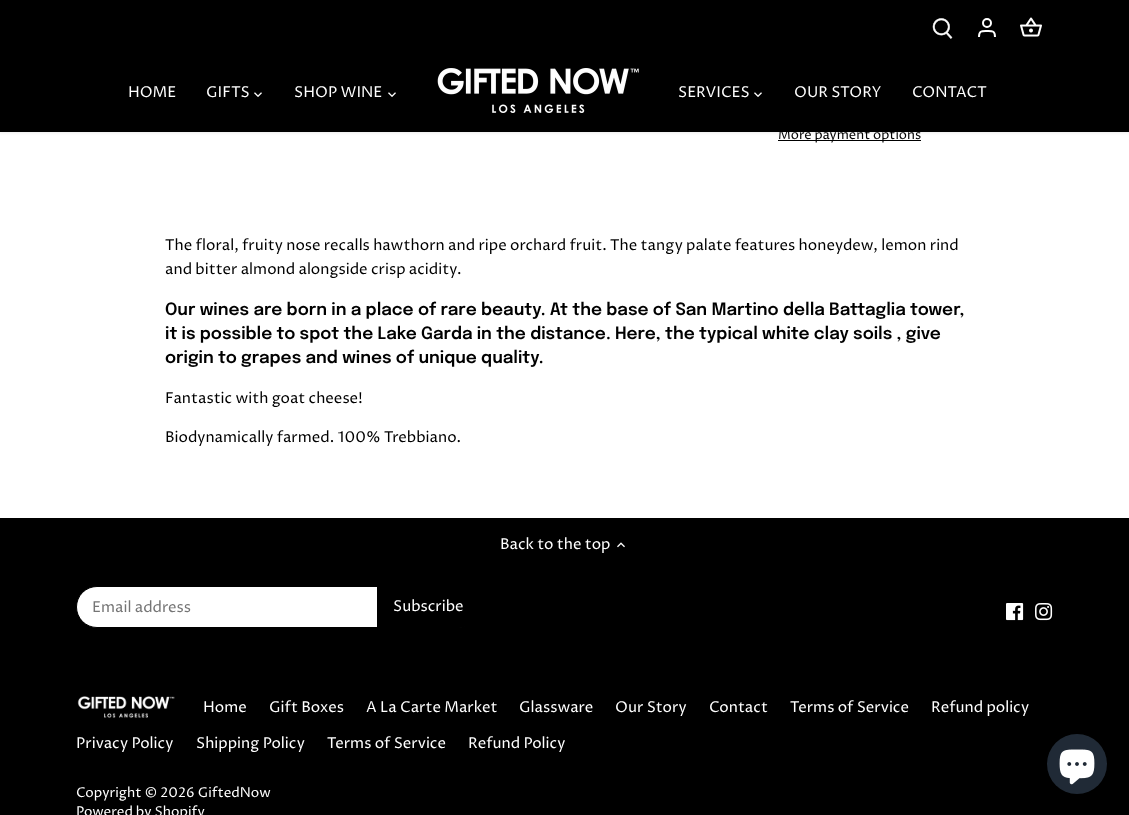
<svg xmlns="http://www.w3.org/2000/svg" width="1129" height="815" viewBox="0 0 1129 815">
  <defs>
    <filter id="blur1" x="-50%" y="-200%" width="200%" height="500%"><feGaussianBlur stdDeviation="1.5"/></filter>
  </defs>
  <rect width="100%" height="100%" fill="#000000"/>
  <rect x="0" y="132" width="1129" height="386" fill="#ffffff"/>
  <rect x="-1" y="-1" width="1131" height="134" fill="#000000" fill-opacity="0.08" filter="url(#blur1)"/>
  <image x="932" y="18" width="21" height="21" href="img1.png"/>
  <circle cx="987" cy="23" r="4" fill="none" stroke="#ffffff" stroke-width="2"/>
  <path d="M995 37C995 30.5 992.5 31 987 31C981.5 31 979 30.5 979 37" fill="none" stroke="#ffffff" stroke-width="2"/>
  <image x="1020" y="17" width="22" height="20" href="img2.png"/>
  <text x="128" y="97" font-family="Proza Libre" font-size="15" fill="#ffffff">HOME</text>
  <text x="206" y="97" font-family="Proza Libre" font-size="15" fill="#ffffff">GIFTS</text>
  <image x="254" y="92" width="8" height="5" href="img3.png"/>
  <text x="294" y="97" font-family="Proza Libre" font-size="15" fill="#ffffff">SHOP WINE</text>
  <image x="388" y="92" width="8" height="5" href="img3.png"/>
  <image x="437" y="68" width="202" height="45" href="img4.png"/>
  <text x="678" y="97" font-family="Proza Libre" font-size="15" fill="#ffffff">SERVICES</text>
  <image x="754" y="92" width="8" height="5" href="img3.png"/>
  <text x="794" y="97" font-family="Proza Libre" font-size="15" fill="#ffffff">OUR STORY</text>
  <text x="912" y="97" font-family="Proza Libre" font-size="15" fill="#ffffff">CONTACT</text>
  <rect x="778" y="140" width="143" height="1" fill="#000000"/>
  <text x="778" y="139" font-family="Proza Libre" font-size="13" fill="#000000">More payment options</text>
  <text x="165" y="250" font-family="Proza Libre" font-size="15" fill="#000000">The floral, fruity nose recalls hawthorn and ripe orchard fruit. The tangy palate features honeydew, lemon rind</text>
  <text x="165" y="274" font-family="Proza Libre" font-size="15" fill="#000000">and bitter almond alongside crisp acidity.</text>
  <text x="165" y="315" font-family="Epilogue" font-size="17" font-weight="600" fill="#000000">Our wines are born in a place of rare beauty. At the base of San Martino della Battaglia tower,</text>
  <text x="165" y="339" font-family="Epilogue" font-size="17" font-weight="600" fill="#000000">it is possible to spot the Lake Garda in the distance. Here, the typical white clay soils , give</text>
  <text x="165" y="363" font-family="Epilogue" font-size="17" font-weight="600" fill="#000000">origin to grapes and wines of unique quality.</text>
  <text x="165" y="403" font-family="Proza Libre" font-size="15" fill="#000000">Fantastic with goat cheese!</text>
  <text x="165" y="442" font-family="Proza Libre" font-size="15" fill="#000000">Biodynamically farmed. 100% Trebbiano.</text>
  <text x="500" y="549" font-family="Proza Libre" font-size="15" fill="#ffffff">Back to the top</text>
  <image x="617" y="542" width="8" height="6" href="img5.png"/>
  <rect x="76.5" y="586.5" width="401" height="41" rx="20.5" fill="#ffffff" stroke="#000000"/>
  <text x="92" y="612" font-family="Proza Libre" font-size="15" fill="#757575">Email address</text>
  <path d="M377.5 586.5H458C469.5 586.5 478.5 595.5 478.5 607C478.5 618.5 469.5 627.5 458 627.5H377.5Z" fill="#000000" stroke="#000000"/>
  <text x="393" y="611" font-family="Proza Libre" font-size="15" fill="#ffffff">Subscribe</text>
  <image x="1006" y="603" width="18" height="18" href="img6.png"/>
  <image x="1035" y="603" width="18" height="18" href="img7.png"/>
  <image x="77" y="696" width="98" height="22" href="img8.png"/>
  <text x="203" y="712" font-family="Proza Libre" font-size="15" fill="#ffffff">Home</text>
  <text x="269" y="712" font-family="Proza Libre" font-size="15" fill="#ffffff">Gift Boxes</text>
  <text x="366" y="712" font-family="Proza Libre" font-size="15" fill="#ffffff">A La Carte Market</text>
  <text x="519" y="712" font-family="Proza Libre" font-size="15" fill="#ffffff">Glassware</text>
  <text x="615" y="712" font-family="Proza Libre" font-size="15" fill="#ffffff">Our Story</text>
  <text x="709" y="712" font-family="Proza Libre" font-size="15" fill="#ffffff">Contact</text>
  <text x="790" y="712" font-family="Proza Libre" font-size="15" fill="#ffffff">Terms of Service</text>
  <text x="931" y="712" font-family="Proza Libre" font-size="15" fill="#ffffff">Refund policy</text>
  <text x="76" y="748" font-family="Proza Libre" font-size="15" fill="#ffffff">Privacy Policy</text>
  <text x="196" y="748" font-family="Proza Libre" font-size="15" fill="#ffffff">Shipping Policy</text>
  <text x="327" y="748" font-family="Proza Libre" font-size="15" fill="#ffffff">Terms of Service</text>
  <text x="468" y="748" font-family="Proza Libre" font-size="15" fill="#ffffff">Refund Policy</text>
  <text x="76" y="797" font-family="Proza Libre" font-size="13.5" fill="#ffffff">Copyright © 2026 GiftedNow</text>
  <text x="76" y="816" font-family="Proza Libre" font-size="13.5" fill="#ffffff">Powered by Shopify</text>
  <circle cx="1077" cy="764" r="30" fill="#202a36"/>
  <image x="1059" y="749" width="36" height="36" href="img9.png"/>
</svg>
